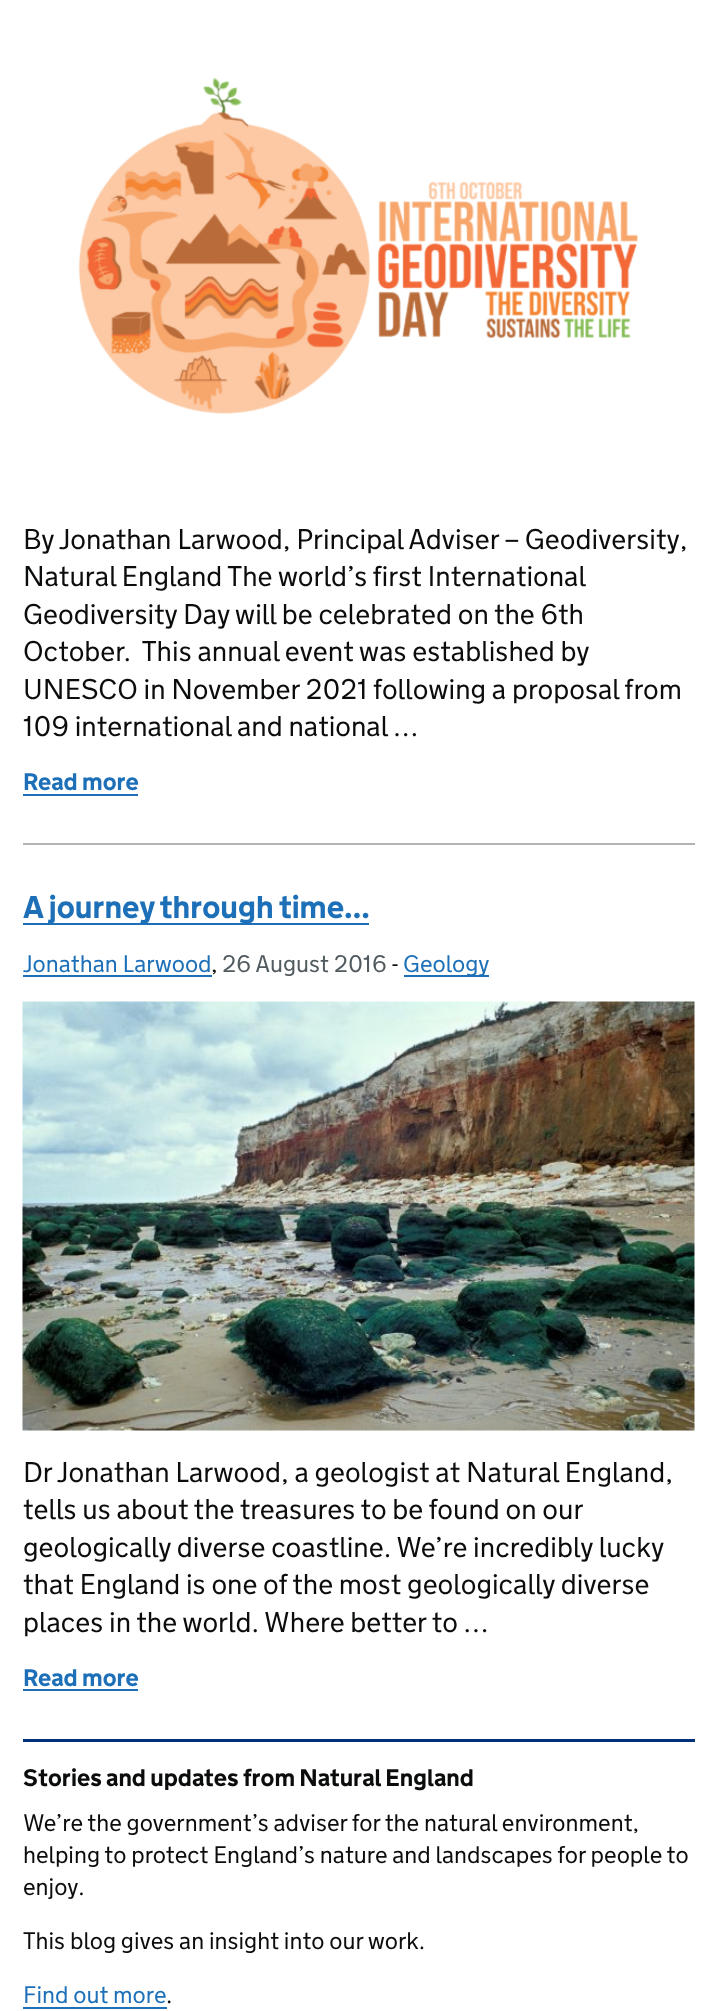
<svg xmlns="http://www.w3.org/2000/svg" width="717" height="2011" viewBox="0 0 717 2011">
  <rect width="100%" height="100%" fill="#ffffff"/>
  <image x="78" y="77" width="561" height="337" href="img1.png"/>
  <text x="23" y="549" font-family="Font" font-size="28.5" font-weight="300" fill="#0b0c0c">By Jonathan Larwood, Principal Adviser – Geodiversity,</text>
  <text x="23" y="586" font-family="Font" font-size="28.5" font-weight="300" fill="#0b0c0c">Natural England The world’s first International</text>
  <text x="23" y="624" font-family="Font" font-size="28.5" font-weight="300" fill="#0b0c0c">Geodiversity Day will be celebrated on the 6th</text>
  <text x="23" y="661" font-family="Font" font-size="28.5" font-weight="300" fill="#0b0c0c" xml:space="preserve">October.  This annual event was established by</text>
  <text x="23" y="699" font-family="Font" font-size="28.5" font-weight="300" fill="#0b0c0c">UNESCO in November 2021 following a proposal from</text>
  <text x="23" y="736" font-family="Font" font-size="28.5" font-weight="300" fill="#0b0c0c">109 international and national …</text>
  <text x="23" y="790" font-family="Font" font-size="24" font-weight="bold" fill="#1d70b8">Read more</text>
  <rect x="23" y="794" width="115" height="2" fill="#1d70b8"/>
  <rect x="23" y="843" width="672" height="2" fill="#b1b4b6"/>
  <rect x="23" y="923" width="346" height="2" fill="#1d70b8"/>
  <text x="23" y="918" font-family="Font" font-size="31.5" font-weight="bold" fill="#1d70b8">A journey through time…</text>
  <text x="23" y="972" font-family="Font" font-size="24" font-weight="300" fill="#1d70b8">Jonathan Larwood</text>
  <rect x="23" y="975" width="189" height="2" fill="#1d70b8"/>
  <text x="222" y="972" font-family="Font" font-size="24" font-weight="300" fill="#505a5f">26 August 2016</text>
  <text x="392" y="972" font-family="Font" font-size="24" font-weight="300" fill="#0b0c0c">-</text>
  <rect x="404" y="975" width="85" height="2" fill="#1d70b8"/>
  <text x="403" y="972" font-family="Font" font-size="24" font-weight="300" fill="#1d70b8">Geology</text>
  <text x="211" y="972" font-family="Font" font-size="24" font-weight="300" fill="#0b0c0c">,</text>
  <image x="22" y="1001" width="673" height="430" href="img2.png"/>
  <text x="23" y="1482" font-family="Font" font-size="28.5" font-weight="300" fill="#0b0c0c">Dr Jonathan Larwood, a geologist at Natural England,</text>
  <text x="23" y="1519" font-family="Font" font-size="28.5" font-weight="300" fill="#0b0c0c">tells us about the treasures to be found on our</text>
  <text x="23" y="1557" font-family="Font" font-size="28.5" font-weight="300" fill="#0b0c0c">geologically diverse coastline. We’re incredibly lucky</text>
  <text x="23" y="1594" font-family="Font" font-size="28.5" font-weight="300" fill="#0b0c0c">that England is one of the most geologically diverse</text>
  <text x="23" y="1632" font-family="Font" font-size="28.5" font-weight="300" fill="#0b0c0c">places in the world. Where better to …</text>
  <text x="23" y="1686" font-family="Font" font-size="24" font-weight="bold" fill="#1d70b8">Read more</text>
  <rect x="23" y="1689" width="115" height="2" fill="#1d70b8"/>
  <rect x="23" y="1739" width="672" height="3" fill="#003078"/>
  <text x="23" y="1786" font-family="Font" font-size="24" font-weight="bold" fill="#0b0c0c">Stories and updates from Natural England</text>
  <text x="23" y="1831" font-family="Font" font-size="24" font-weight="300" fill="#0b0c0c">We’re the government’s adviser for the natural environment,</text>
  <text x="23" y="1863" font-family="Font" font-size="24" font-weight="300" fill="#0b0c0c">helping to protect England’s nature and landscapes for people to</text>
  <text x="23" y="1895" font-family="Font" font-size="24" font-weight="300" fill="#0b0c0c">enjoy.</text>
  <text x="23" y="1949" font-family="Font" font-size="24" font-weight="300" fill="#0b0c0c">This blog gives an insight into our work.</text>
  <text x="23" y="2003" font-family="Font" font-size="24" font-weight="300" fill="#1d70b8">Find out more</text>
  <rect x="23" y="2007" width="144" height="2" fill="#1d70b8"/>
  <text x="166" y="2003" font-family="Font" font-size="24" font-weight="300" fill="#0b0c0c">.</text>
</svg>
